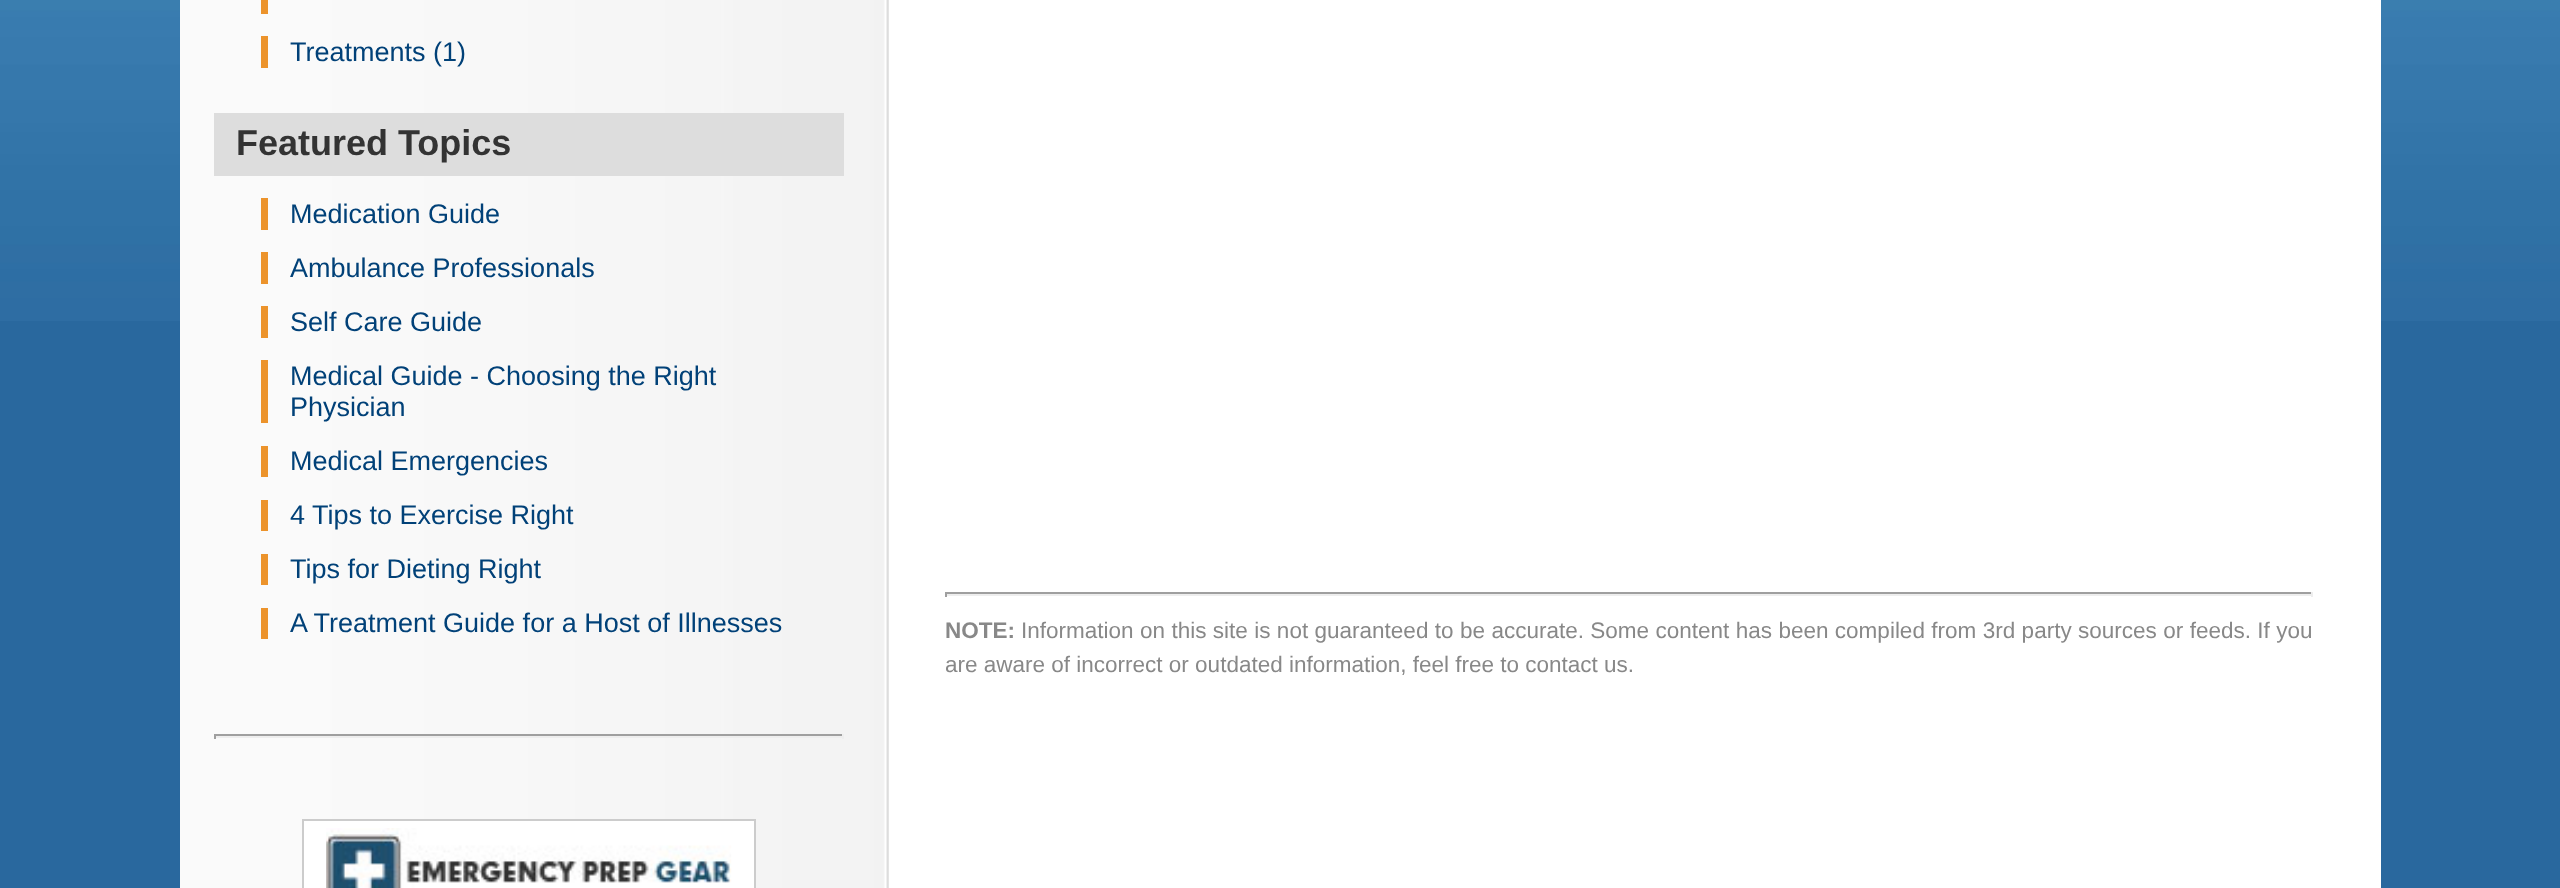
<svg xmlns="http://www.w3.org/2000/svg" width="2560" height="888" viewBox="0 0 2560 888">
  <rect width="100%" height="100%" fill="#29689e"/>
  <image x="0" y="0" width="2560" height="321" href="img1.png"/>
  <rect x="888" y="0" width="1493" height="888" fill="#ffffff"/>
  <image x="180" y="0" width="709" height="888" href="img2.png"/>
  <rect x="261" y="0" width="7" height="14" fill="#ec932b"/>
  <rect x="261" y="36" width="7" height="32" fill="#ec932b"/>
  <text x="290" y="61" font-family="Liberation Sans" font-size="27" fill="#014178">Treatments (1)</text>
  <rect x="214" y="113" width="630" height="63" fill="#dddddd"/>
  <text x="236" y="155" font-family="Liberation Sans" font-size="36" font-weight="bold" fill="#333333">Featured Topics</text>
  <rect x="261" y="198" width="7" height="32" fill="#ec932b"/>
  <text x="290" y="223" font-family="Liberation Sans" font-size="27" fill="#014178">Medication Guide</text>
  <rect x="261" y="252" width="7" height="32" fill="#ec932b"/>
  <text x="290" y="277" font-family="Liberation Sans" font-size="27" fill="#014178">Ambulance Professionals</text>
  <rect x="261" y="306" width="7" height="32" fill="#ec932b"/>
  <text x="290" y="331" font-family="Liberation Sans" font-size="27" fill="#014178">Self Care Guide</text>
  <rect x="261" y="360" width="7" height="63" fill="#ec932b"/>
  <text x="290" y="385" font-family="Liberation Sans" font-size="27" fill="#014178">Medical Guide - Choosing the Right</text>
  <text x="290" y="416" font-family="Liberation Sans" font-size="27" fill="#014178">Physician</text>
  <rect x="261" y="446" width="7" height="31" fill="#ec932b"/>
  <text x="290" y="470" font-family="Liberation Sans" font-size="27" fill="#014178">Medical Emergencies</text>
  <rect x="261" y="500" width="7" height="31" fill="#ec932b"/>
  <text x="290" y="524" font-family="Liberation Sans" font-size="27" fill="#014178">4 Tips to Exercise Right</text>
  <rect x="261" y="554" width="7" height="31" fill="#ec932b"/>
  <text x="290" y="578" font-family="Liberation Sans" font-size="27" fill="#014178">Tips for Dieting Right</text>
  <rect x="261" y="608" width="7" height="31" fill="#ec932b"/>
  <text x="290" y="632" font-family="Liberation Sans" font-size="27" fill="#014178">A Treatment Guide for a Host of Illnesses</text>
  <rect x="214" y="734" width="630" height="2" fill="#9f9f9f"/>
  <rect x="842" y="734" width="2" height="5" fill="#eeeeee"/>
  <rect x="214" y="736" width="630" height="2" fill="#eeeeee"/>
  <rect x="214" y="734" width="2" height="5" fill="#9f9f9f"/>
  <rect x="303" y="820" width="452" height="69" fill="#ffffff" stroke="#cccccc" stroke-width="2"/>
  <image x="326" y="828" width="406" height="60" href="img3.png"/>
  <rect x="945" y="592" width="1368" height="2" fill="#9f9f9f"/>
  <rect x="2311" y="592" width="2" height="5" fill="#eeeeee"/>
  <rect x="945" y="594" width="1368" height="2" fill="#eeeeee"/>
  <rect x="945" y="592" width="2" height="5" fill="#9f9f9f"/>
  <text x="945" y="638" font-family="Liberation Sans" font-size="22.5" font-weight="bold" fill="#888888">NOTE:</text>
  <text x="1021" y="638" word-spacing="0.15" font-family="Liberation Sans" font-size="22.5" fill="#888888">Information on this site is not guaranteed to be accurate. Some content has been compiled from 3rd party sources or feeds. If you</text>
  <text x="945" y="672" font-family="Liberation Sans" font-size="22.5" fill="#888888">are aware of incorrect or outdated information, feel free to contact us.</text>
</svg>
